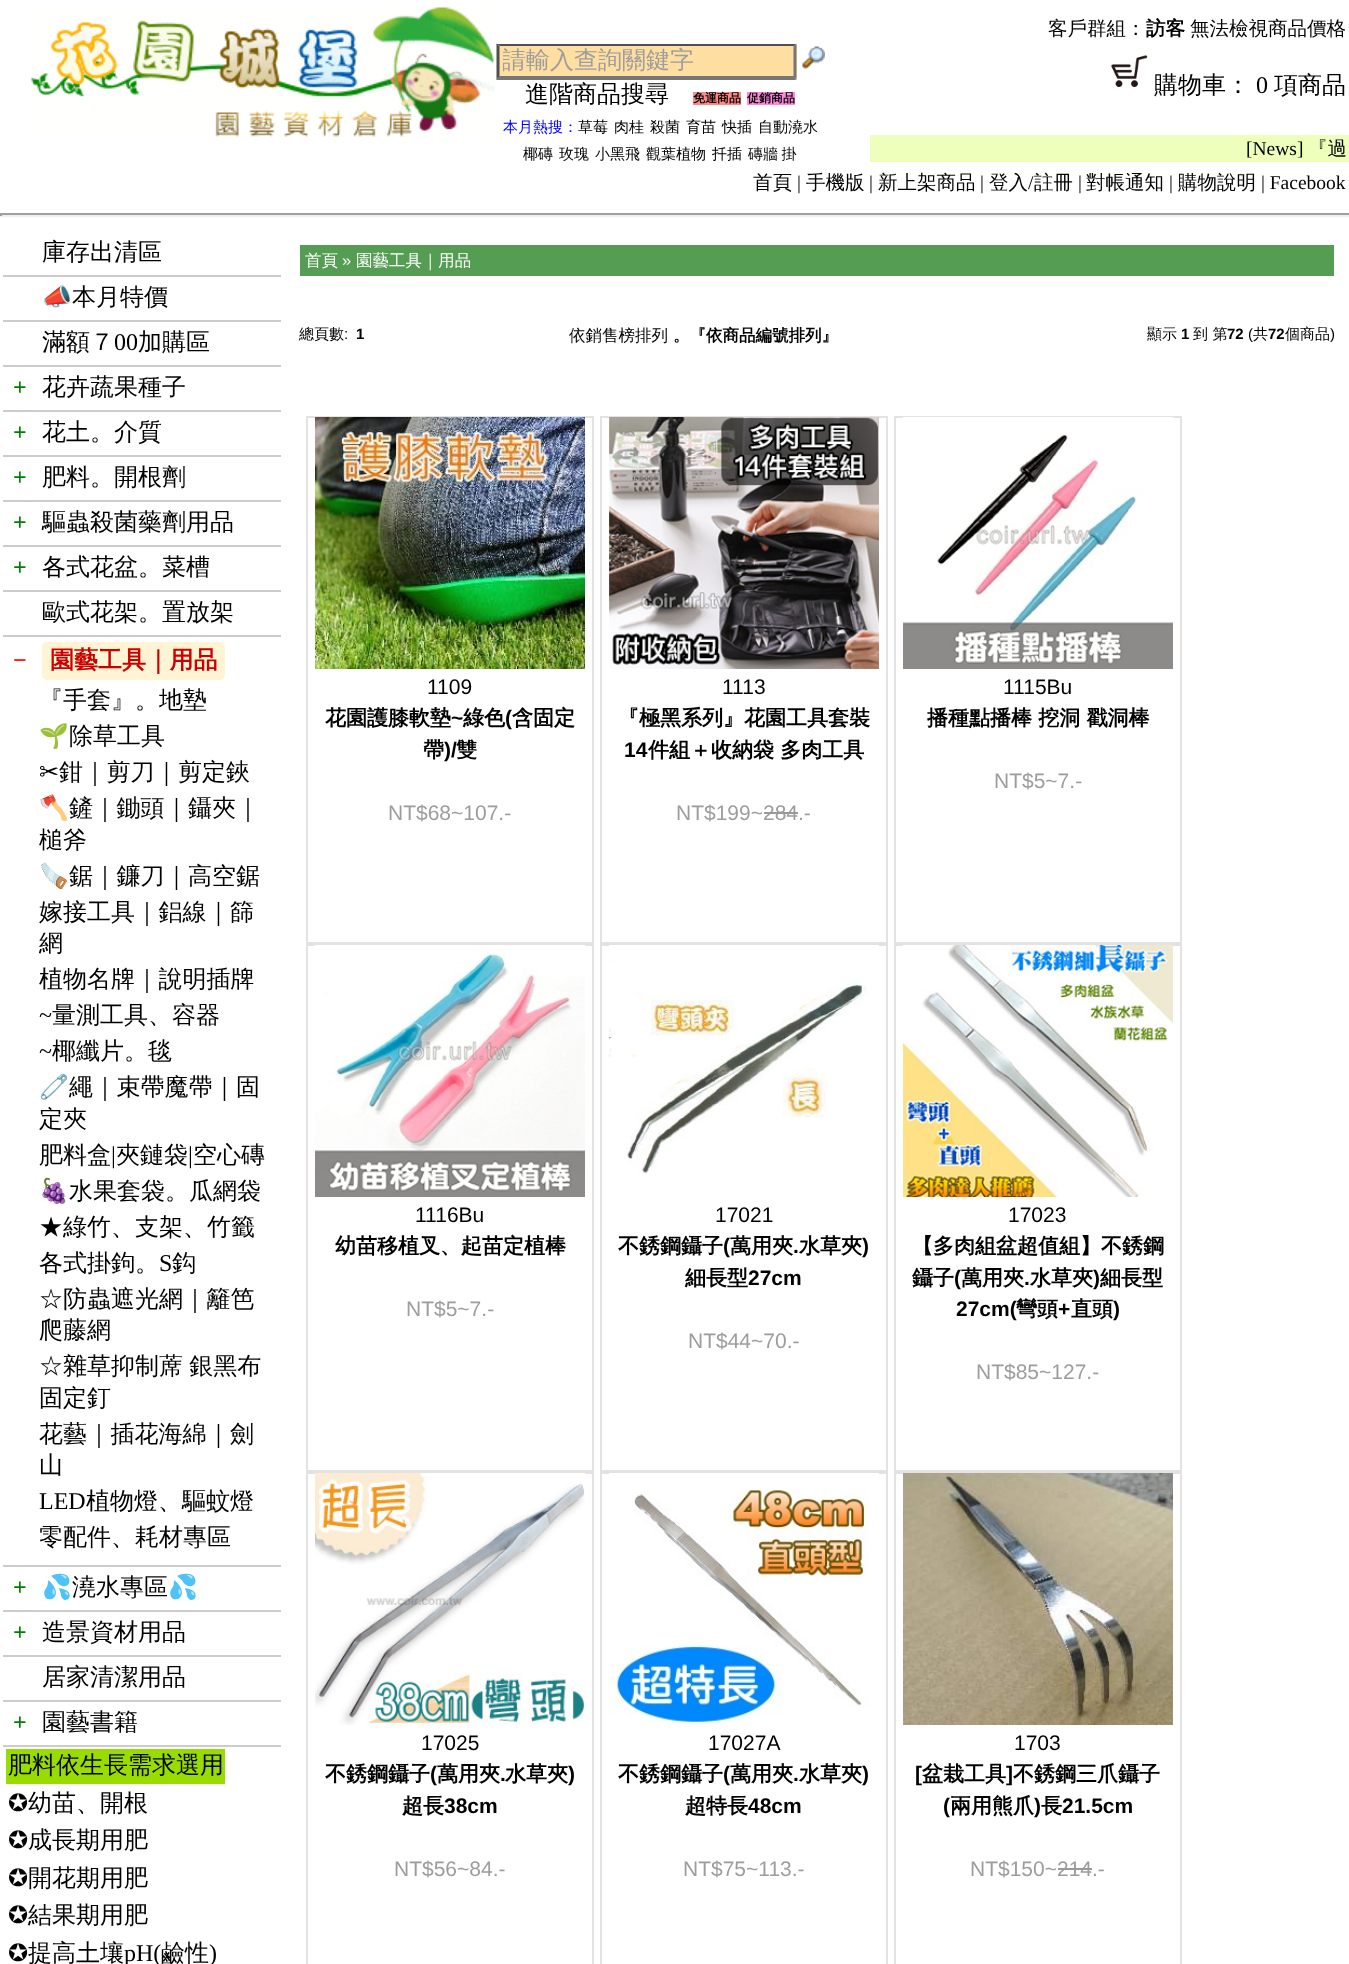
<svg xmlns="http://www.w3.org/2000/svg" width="1349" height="1964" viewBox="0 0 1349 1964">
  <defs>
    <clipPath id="clip1"><rect x="503" y="47" width="288" height="30"/></clipPath>
  </defs>
  <rect width="100%" height="100%" fill="#ffffff"/>
  <image x="30" y="7" width="465" height="130" href="img1.png"/>
  <rect x="497" y="44" width="300" height="36" fill="#ffdea1"/>
  <path d="M496 44H796L794 46H500Z" fill="#4f4f4f"/>
  <path d="M796.5 43.5V79.5L793.5 76.5V46.5Z" fill="#767676"/>
  <path d="M796 80H496L500 76H794Z" fill="#767676"/>
  <path d="M496.5 79.5V43.5L499.5 46.5V76.5Z" fill="#4f4f4f"/>
  <g clip-path="url(#clip1)">
    <text x="502" y="68" font-family="WenQuanYi Zen Hei" font-size="24" font-weight="500" fill="#9d9d9d">請輸入查詢關鍵字</text>
  </g>
  <image x="802" y="46" width="23" height="23" href="img2.png"/>
  <text x="525" y="102" font-family="WenQuanYi Zen Hei" font-size="24" font-weight="500" fill="#000000">進階商品搜尋</text>
  <rect x="693" y="92" width="48" height="13" fill="#ff8888"/>
  <text x="693" y="102" font-family="WenQuanYi Zen Hei" font-size="12" font-weight="bold" fill="#000000">免運商品</text>
  <rect x="747" y="92" width="48" height="13" fill="#ff88dd"/>
  <text x="747" y="102" font-family="WenQuanYi Zen Hei" font-size="12" font-weight="bold" fill="#000000">促銷商品</text>
  <text x="503" y="132" font-family="WenQuanYi Zen Hei" font-size="15" font-weight="500" fill="#0000ff">本月熱搜：</text>
  <text x="578" y="132" font-family="WenQuanYi Zen Hei" font-size="15" font-weight="500" fill="#000000">草莓</text>
  <text x="614" y="132" font-family="WenQuanYi Zen Hei" font-size="15" font-weight="500" fill="#000000">肉桂</text>
  <text x="650" y="132" font-family="WenQuanYi Zen Hei" font-size="15" font-weight="500" fill="#000000">殺菌</text>
  <text x="686" y="132" font-family="WenQuanYi Zen Hei" font-size="15" font-weight="500" fill="#000000">育苗</text>
  <text x="722" y="132" font-family="WenQuanYi Zen Hei" font-size="15" font-weight="500" fill="#000000">快插</text>
  <text x="758" y="132" font-family="WenQuanYi Zen Hei" font-size="15" font-weight="500" fill="#000000">自動澆水</text>
  <text x="523" y="159" font-family="WenQuanYi Zen Hei" font-size="15" font-weight="500" fill="#000000">椰磚</text>
  <text x="559" y="159" font-family="WenQuanYi Zen Hei" font-size="15" font-weight="500" fill="#000000">玫瑰</text>
  <text x="595" y="159" font-family="WenQuanYi Zen Hei" font-size="15" font-weight="500" fill="#000000">小黑飛</text>
  <text x="646" y="159" font-family="WenQuanYi Zen Hei" font-size="15" font-weight="500" fill="#000000">觀葉植物</text>
  <text x="712" y="159" font-family="WenQuanYi Zen Hei" font-size="15" font-weight="500" fill="#000000">扦插</text>
  <text x="748" y="159" word-spacing="-1" font-family="WenQuanYi Zen Hei" font-size="15" font-weight="500" fill="#000000">磚牆 掛</text>
  <text x="1048" y="35" font-family="WenQuanYi Zen Hei" font-size="19.5" font-weight="500" fill="#000000">客戶群組：</text>
  <text x="1146" y="35" font-family="WenQuanYi Zen Hei" font-size="19.5" font-weight="bold" fill="#000000">訪客</text>
  <text x="1190" y="35" font-family="WenQuanYi Zen Hei" font-size="19.5" font-weight="500" fill="#000000">無法檢視商品價格</text>
  <image x="1111" y="55" width="37" height="32" href="img3.png"/>
  <text x="1154" y="93" font-family="WenQuanYi Zen Hei" font-size="24" font-weight="500" fill="#000000">購物車：</text>
  <text x="1256" y="93" font-family="Liberation Serif" font-size="24" fill="#000000">0</text>
  <text x="1274" y="93" font-family="WenQuanYi Zen Hei" font-size="24" font-weight="500" fill="#000000">項商品</text>
  <rect x="870" y="135" width="479" height="27" fill="#eeffbb"/>
  <text x="1246" y="155" font-family="Liberation Serif" font-size="19.5" fill="#000000">[News]</text>
  <text x="1308" y="155" word-spacing="-1" font-family="WenQuanYi Zen Hei" font-size="19.5" font-weight="500" fill="#000000">『過</text>
  <text x="753" y="189" font-family="WenQuanYi Zen Hei" font-size="19.5" font-weight="500" fill="#000000">首頁</text>
  <text x="797" y="189" font-family="Liberation Serif" font-size="19.5" fill="#000000">|</text>
  <text x="806" y="189" font-family="WenQuanYi Zen Hei" font-size="19.5" font-weight="500" fill="#000000">手機版</text>
  <text x="869" y="189" font-family="Liberation Serif" font-size="19.5" fill="#000000">|</text>
  <text x="878" y="189" font-family="WenQuanYi Zen Hei" font-size="19.5" font-weight="500" fill="#000000">新上架商品</text>
  <text x="980" y="189" font-family="Liberation Serif" font-size="19.5" fill="#000000">|</text>
  <text x="989" y="189" font-family="WenQuanYi Zen Hei" font-size="19.5" font-weight="500" fill="#000000">登入</text>
  <text x="1028" y="189" font-family="Liberation Serif" font-size="19.5" fill="#000000">/</text>
  <text x="1034" y="189" font-family="WenQuanYi Zen Hei" font-size="19.5" font-weight="500" fill="#000000">註冊</text>
  <text x="1078" y="189" font-family="Liberation Serif" font-size="19.5" fill="#000000">|</text>
  <text x="1086" y="189" font-family="WenQuanYi Zen Hei" font-size="19.5" font-weight="500" fill="#000000">對帳通知</text>
  <text x="1169" y="189" font-family="Liberation Serif" font-size="19.5" fill="#000000">|</text>
  <text x="1178" y="189" font-family="WenQuanYi Zen Hei" font-size="19.5" font-weight="500" fill="#000000">購物說明</text>
  <text x="1261" y="189" font-family="Liberation Serif" font-size="19.5" fill="#000000">| Facebook</text>
  <rect x="0" y="213" width="1349" height="2" fill="#9f9f9f"/>
  <rect x="0" y="215" width="1349" height="2" fill="#eeeeee"/>
  <rect x="0" y="213" width="2" height="3" fill="#9f9f9f"/>
  <rect x="3" y="275" width="278" height="2" fill="#cccccc"/>
  <text x="42" y="260" font-family="WenQuanYi Zen Hei" font-size="24" font-weight="500" fill="#000000">庫存出清區</text>
  <rect x="3" y="320" width="278" height="2" fill="#cccccc"/>
  <text x="42" y="305" font-family="Noto Color Emoji" font-size="24" fill="#000000">📣</text>
  <text x="72" y="305" font-family="WenQuanYi Zen Hei" font-size="24" font-weight="500" fill="#000000">本月特價</text>
  <rect x="3" y="365" width="278" height="2" fill="#cccccc"/>
  <text x="42" y="350" font-family="WenQuanYi Zen Hei" font-size="24" font-weight="500" fill="#000000">滿額７</text>
  <text x="114" y="350" font-family="Liberation Serif" font-size="24" fill="#000000">00</text>
  <text x="138" y="350" font-family="WenQuanYi Zen Hei" font-size="24" font-weight="500" fill="#000000">加購區</text>
  <rect x="3" y="410" width="278" height="2" fill="#cccccc"/>
  <text x="13" y="395" font-family="Liberation Serif" font-size="24" font-weight="bold" fill="#008000">+</text>
  <text x="42" y="395" font-family="WenQuanYi Zen Hei" font-size="24" font-weight="500" fill="#000000">花卉蔬果種子</text>
  <rect x="3" y="455" width="278" height="2" fill="#cccccc"/>
  <text x="13" y="440" font-family="Liberation Serif" font-size="24" font-weight="bold" fill="#008000">+</text>
  <text x="42" y="440" font-family="WenQuanYi Zen Hei" font-size="24" font-weight="500" fill="#000000">花土。介質</text>
  <rect x="3" y="500" width="278" height="2" fill="#cccccc"/>
  <text x="13" y="485" font-family="Liberation Serif" font-size="24" font-weight="bold" fill="#008000">+</text>
  <text x="42" y="485" font-family="WenQuanYi Zen Hei" font-size="24" font-weight="500" fill="#000000">肥料。開根劑</text>
  <rect x="3" y="545" width="278" height="2" fill="#cccccc"/>
  <text x="13" y="530" font-family="Liberation Serif" font-size="24" font-weight="bold" fill="#008000">+</text>
  <text x="42" y="530" font-family="WenQuanYi Zen Hei" font-size="24" font-weight="500" fill="#000000">驅蟲殺菌藥劑用品</text>
  <rect x="3" y="590" width="278" height="2" fill="#cccccc"/>
  <text x="13" y="575" font-family="Liberation Serif" font-size="24" font-weight="bold" fill="#008000">+</text>
  <text x="42" y="575" font-family="WenQuanYi Zen Hei" font-size="24" font-weight="500" fill="#000000">各式花盆。菜槽</text>
  <rect x="3" y="635" width="278" height="2" fill="#cccccc"/>
  <text x="42" y="620" font-family="WenQuanYi Zen Hei" font-size="24" font-weight="500" fill="#000000">歐式花架。置放架</text>
  <rect x="3" y="1565" width="278" height="2" fill="#cccccc"/>
  <text x="13" y="668" font-family="Liberation Serif" font-size="24" font-weight="bold" fill="#ff0000">−</text>
  <rect x="42" y="642" width="183" height="38" rx="5" fill="#fff5d5"/>
  <text x="50" y="668" font-family="WenQuanYi Zen Hei" font-size="24" font-weight="bold" fill="#cc0000">園藝工具｜用品</text>
  <text x="39" y="708" font-family="WenQuanYi Zen Hei" font-size="24" font-weight="500" fill="#000000">『手套』。地墊</text>
  <text x="39" y="744" font-family="Noto Color Emoji" font-size="24" fill="#000000">🌱</text>
  <text x="69" y="744" font-family="WenQuanYi Zen Hei" font-size="24" font-weight="500" fill="#000000">除草工具</text>
  <text x="39" y="780" font-family="DejaVu Sans" font-size="24" fill="#000000">✂</text>
  <text x="59" y="780" font-family="WenQuanYi Zen Hei" font-size="24" font-weight="500" fill="#000000">鉗｜剪刀｜剪定鋏</text>
  <text x="39" y="816" font-family="Noto Color Emoji" font-size="24" fill="#000000">🪓</text>
  <text x="69" y="816" font-family="WenQuanYi Zen Hei" font-size="24" font-weight="500" fill="#000000">鏟｜鋤頭｜鑷夾｜</text>
  <text x="39" y="848" font-family="WenQuanYi Zen Hei" font-size="24" font-weight="500" fill="#000000">槌斧</text>
  <text x="39" y="884" font-family="Noto Color Emoji" font-size="24" fill="#000000">🪚</text>
  <text x="69" y="884" font-family="WenQuanYi Zen Hei" font-size="24" font-weight="500" fill="#000000">鋸｜鐮刀｜高空鋸</text>
  <text x="39" y="920" font-family="WenQuanYi Zen Hei" font-size="24" font-weight="500" fill="#000000">嫁接工具｜鋁線｜篩</text>
  <text x="39" y="951" font-family="WenQuanYi Zen Hei" font-size="24" font-weight="500" fill="#000000">網</text>
  <text x="39" y="987" font-family="WenQuanYi Zen Hei" font-size="24" font-weight="500" fill="#000000">植物名牌｜說明插牌</text>
  <text x="39" y="1023" font-family="Liberation Serif" font-size="24" fill="#000000">~</text>
  <text x="52" y="1023" font-family="WenQuanYi Zen Hei" font-size="24" font-weight="500" fill="#000000">量測工具、容器</text>
  <text x="39" y="1059" font-family="Liberation Serif" font-size="24" fill="#000000">~</text>
  <text x="52" y="1059" font-family="WenQuanYi Zen Hei" font-size="24" font-weight="500" fill="#000000">椰纖片。毯</text>
  <text x="39" y="1095" font-family="Noto Color Emoji" font-size="24" fill="#000000">🧷</text>
  <text x="69" y="1095" font-family="WenQuanYi Zen Hei" font-size="24" font-weight="500" fill="#000000">繩｜束帶魔帶｜固</text>
  <text x="39" y="1127" font-family="WenQuanYi Zen Hei" font-size="24" font-weight="500" fill="#000000">定夾</text>
  <text x="39" y="1163" font-family="WenQuanYi Zen Hei" font-size="24" font-weight="500" fill="#000000">肥料盒</text>
  <text x="111" y="1163" font-family="Liberation Serif" font-size="24" fill="#000000">|</text>
  <text x="116" y="1163" font-family="WenQuanYi Zen Hei" font-size="24" font-weight="500" fill="#000000">夾鏈袋</text>
  <text x="188" y="1163" font-family="Liberation Serif" font-size="24" fill="#000000">|</text>
  <text x="193" y="1163" font-family="WenQuanYi Zen Hei" font-size="24" font-weight="500" fill="#000000">空心磚</text>
  <text x="39" y="1199" font-family="Noto Color Emoji" font-size="24" fill="#000000">🍇</text>
  <text x="69" y="1199" font-family="WenQuanYi Zen Hei" font-size="24" font-weight="500" fill="#000000">水果套袋。瓜網袋</text>
  <text x="39" y="1235" font-family="WenQuanYi Zen Hei" font-size="24" font-weight="500" fill="#000000">★綠竹、支架、竹籤</text>
  <text x="39" y="1271" font-family="WenQuanYi Zen Hei" font-size="24" font-weight="500" fill="#000000">各式掛鉤。</text>
  <text x="159" y="1271" font-family="Liberation Serif" font-size="24" fill="#000000">S</text>
  <text x="172" y="1271" font-family="WenQuanYi Zen Hei" font-size="24" font-weight="500" fill="#000000">鈎</text>
  <text x="39" y="1307" font-family="WenQuanYi Zen Hei" font-size="24" font-weight="500" fill="#000000">☆防蟲遮光網｜籬笆</text>
  <text x="39" y="1338" font-family="WenQuanYi Zen Hei" font-size="24" font-weight="500" fill="#000000">爬藤網</text>
  <text x="39" y="1374" word-spacing="-1" font-family="WenQuanYi Zen Hei" font-size="24" font-weight="500" fill="#000000">☆雜草抑制蓆 銀黑布</text>
  <text x="39" y="1406" font-family="WenQuanYi Zen Hei" font-size="24" font-weight="500" fill="#000000">固定釘</text>
  <text x="39" y="1442" font-family="WenQuanYi Zen Hei" font-size="24" font-weight="500" fill="#000000">花藝｜插花海綿｜劍</text>
  <text x="39" y="1473" font-family="WenQuanYi Zen Hei" font-size="24" font-weight="500" fill="#000000">山</text>
  <text x="39" y="1509" font-family="Liberation Serif" font-size="24" fill="#000000">LED</text>
  <text x="86" y="1509" font-family="WenQuanYi Zen Hei" font-size="24" font-weight="500" fill="#000000">植物燈、驅蚊燈</text>
  <text x="39" y="1545" font-family="WenQuanYi Zen Hei" font-size="24" font-weight="500" fill="#000000">零配件、耗材專區</text>
  <rect x="3" y="1610" width="278" height="2" fill="#cccccc"/>
  <text x="13" y="1595" font-family="Liberation Serif" font-size="24" font-weight="bold" fill="#008000">+</text>
  <text x="42" y="1595" font-family="Noto Color Emoji" font-size="24" fill="#000000">💦</text>
  <text x="72" y="1595" font-family="WenQuanYi Zen Hei" font-size="24" font-weight="500" fill="#000000">澆水專區</text>
  <text x="168" y="1595" font-family="Noto Color Emoji" font-size="24" fill="#000000">💦</text>
  <rect x="3" y="1655" width="278" height="2" fill="#cccccc"/>
  <text x="13" y="1640" font-family="Liberation Serif" font-size="24" font-weight="bold" fill="#008000">+</text>
  <text x="42" y="1640" font-family="WenQuanYi Zen Hei" font-size="24" font-weight="500" fill="#000000">造景資材用品</text>
  <rect x="3" y="1700" width="278" height="2" fill="#cccccc"/>
  <text x="42" y="1685" font-family="WenQuanYi Zen Hei" font-size="24" font-weight="500" fill="#000000">居家清潔用品</text>
  <rect x="3" y="1745" width="278" height="2" fill="#cccccc"/>
  <text x="13" y="1730" font-family="Liberation Serif" font-size="24" font-weight="bold" fill="#008000">+</text>
  <text x="42" y="1730" font-family="WenQuanYi Zen Hei" font-size="24" font-weight="500" fill="#000000">園藝書籍</text>
  <rect x="6" y="1749" width="219" height="35" fill="#99dd00"/>
  <text x="8" y="1773" font-family="WenQuanYi Zen Hei" font-size="24" font-weight="500" fill="#000000">肥料依生長需求選用</text>
  <text x="8" y="1811" font-family="DejaVu Sans" font-size="24" fill="#000000">✪</text>
  <text x="28" y="1811" font-family="WenQuanYi Zen Hei" font-size="24" font-weight="500" fill="#000000">幼苗、開根</text>
  <text x="8" y="1848" font-family="DejaVu Sans" font-size="24" fill="#000000">✪</text>
  <text x="28" y="1848" font-family="WenQuanYi Zen Hei" font-size="24" font-weight="500" fill="#000000">成長期用肥</text>
  <text x="8" y="1886" font-family="DejaVu Sans" font-size="24" fill="#000000">✪</text>
  <text x="28" y="1886" font-family="WenQuanYi Zen Hei" font-size="24" font-weight="500" fill="#000000">開花期用肥</text>
  <text x="8" y="1923" font-family="DejaVu Sans" font-size="24" fill="#000000">✪</text>
  <text x="28" y="1923" font-family="WenQuanYi Zen Hei" font-size="24" font-weight="500" fill="#000000">結果期用肥</text>
  <text x="8" y="1961" font-family="DejaVu Sans" font-size="24" fill="#000000">✪</text>
  <text x="28" y="1961" font-family="WenQuanYi Zen Hei" font-size="24" font-weight="500" fill="#000000">提高土壤</text>
  <text x="124" y="1961" font-family="Liberation Serif" font-size="24" fill="#000000">pH(</text>
  <text x="161" y="1961" font-family="WenQuanYi Zen Hei" font-size="24" font-weight="500" fill="#000000">鹼性</text>
  <text x="209" y="1961" font-family="Liberation Serif" font-size="24" fill="#000000">)</text>
  <rect x="300" y="245" width="1034" height="31" fill="#559d52"/>
  <text x="305" y="266" font-family="WenQuanYi Zen Hei" font-size="16.5" font-weight="500" fill="#ffffff">首頁</text>
  <text x="342" y="266" font-family="Liberation Sans" font-size="16.5" fill="#ffffff">»</text>
  <text x="356" y="266" font-family="WenQuanYi Zen Hei" font-size="16.5" font-weight="500" fill="#ffffff">園藝工具｜用品</text>
  <text x="299" y="339" font-family="WenQuanYi Zen Hei" font-size="15" font-weight="500" fill="#000000">總頁數</text>
  <text x="344" y="339" font-family="Liberation Sans" font-size="15" fill="#000000">:</text>
  <text x="356" y="339" font-family="Liberation Sans" font-size="15" font-weight="bold" fill="#000000">1</text>
  <text x="569" y="341" font-family="WenQuanYi Zen Hei" font-size="16.5" font-weight="500" fill="#000000">依銷售榜排列</text>
  <text x="673" y="341" font-family="WenQuanYi Zen Hei" font-size="16.5" font-weight="bold" fill="#000000">。『依商品編號排列』</text>
  <text x="1147" y="339" font-family="WenQuanYi Zen Hei" font-size="15" font-weight="500" fill="#000000">顯示</text>
  <text x="1181" y="339" font-family="Liberation Sans" font-size="15" font-weight="bold" fill="#000000">1</text>
  <text x="1193" y="339" font-family="WenQuanYi Zen Hei" font-size="15" font-weight="500" fill="#000000">到 第</text>
  <text x="1227" y="339" font-family="Liberation Sans" font-size="15" font-weight="bold" fill="#000000">72</text>
  <text x="1248" y="339" font-family="Liberation Sans" font-size="15" fill="#000000">(</text>
  <text x="1253" y="339" font-family="WenQuanYi Zen Hei" font-size="15" font-weight="500" fill="#000000">共</text>
  <text x="1268" y="339" font-family="Liberation Sans" font-size="15" font-weight="bold" fill="#000000">72</text>
  <text x="1285" y="339" font-family="WenQuanYi Zen Hei" font-size="15" font-weight="500" fill="#000000">個商品</text>
  <text x="1330" y="339" font-family="Liberation Sans" font-size="15" fill="#000000">)</text>
  <rect x="307" y="417" width="286" height="526" fill="none" stroke="#e4e2e2" stroke-width="2"/>
  <image x="315" y="417" width="270" height="252" href="img4.png"/>
  <text x="427" y="694" font-family="Liberation Sans" font-size="21" fill="#000000">1109</text>
  <text x="325" y="725" font-family="WenQuanYi Zen Hei" font-size="21" font-weight="bold" fill="#000000">花園護膝軟墊</text>
  <text x="451" y="725" font-family="Liberation Sans" font-size="21" font-weight="bold" fill="#000000">~</text>
  <text x="463" y="725" font-family="WenQuanYi Zen Hei" font-size="21" font-weight="bold" fill="#000000">綠色</text>
  <text x="505" y="725" font-family="Liberation Sans" font-size="21" font-weight="bold" fill="#000000">(</text>
  <text x="512" y="725" font-family="WenQuanYi Zen Hei" font-size="21" font-weight="bold" fill="#000000">含固定</text>
  <text x="423" y="757" font-family="WenQuanYi Zen Hei" font-size="21" font-weight="bold" fill="#000000">帶</text>
  <text x="444" y="757" font-family="Liberation Sans" font-size="21" font-weight="bold" fill="#000000">)/</text>
  <text x="456" y="757" font-family="WenQuanYi Zen Hei" font-size="21" font-weight="bold" fill="#000000">雙</text>
  <text x="388" y="820" font-family="Liberation Sans" font-size="21" fill="#9d9d9d">NT$68~107.-</text>
  <rect x="601" y="417" width="286" height="526" fill="none" stroke="#e4e2e2" stroke-width="2"/>
  <image x="609" y="417" width="270" height="252" href="img5.png"/>
  <text x="722" y="694" font-family="Liberation Sans" font-size="21" fill="#000000">1113</text>
  <text x="618" y="725" font-family="WenQuanYi Zen Hei" font-size="21" font-weight="bold" fill="#000000">『極黑系列』花園工具套裝</text>
  <text x="624" y="757" font-family="Liberation Sans" font-size="21" font-weight="bold" fill="#000000">14</text>
  <text x="648" y="757" font-family="WenQuanYi Zen Hei" font-size="21" font-weight="bold" fill="#000000">件組＋收納袋 多肉工具</text>
  <text x="676" y="820" font-family="Liberation Sans" font-size="21" fill="#9d9d9d">NT$199~284.-</text>
  <rect x="764" y="812" width="34" height="2" fill="#999999"/>
  <rect x="895" y="417" width="286" height="526" fill="none" stroke="#e4e2e2" stroke-width="2"/>
  <image x="903" y="417" width="270" height="252" href="img6.png"/>
  <text x="1003" y="694" font-family="Liberation Sans" font-size="21" fill="#000000">1115Bu</text>
  <text x="927" y="725" font-family="WenQuanYi Zen Hei" font-size="21" font-weight="bold" fill="#000000">播種點播棒 挖洞 戳洞棒</text>
  <text x="994" y="788" font-family="Liberation Sans" font-size="21" fill="#9d9d9d">NT$5~7.-</text>
  <rect x="307" y="945" width="286" height="526" fill="none" stroke="#e4e2e2" stroke-width="2"/>
  <image x="315" y="945" width="270" height="252" href="img7.png"/>
  <text x="415" y="1222" font-family="Liberation Sans" font-size="21" fill="#000000">1116Bu</text>
  <text x="335" y="1253" font-family="WenQuanYi Zen Hei" font-size="21" font-weight="bold" fill="#000000">幼苗移植叉、起苗定植棒</text>
  <text x="406" y="1316" font-family="Liberation Sans" font-size="21" fill="#9d9d9d">NT$5~7.-</text>
  <rect x="601" y="945" width="286" height="526" fill="none" stroke="#e4e2e2" stroke-width="2"/>
  <image x="609" y="945" width="270" height="229" href="img8.png"/>
  <text x="715" y="1222" font-family="Liberation Sans" font-size="21" fill="#000000">17021</text>
  <text x="618" y="1253" font-family="WenQuanYi Zen Hei" font-size="21" font-weight="bold" fill="#000000">不銹鋼鑷子</text>
  <text x="723" y="1253" font-family="Liberation Sans" font-size="21" font-weight="bold" fill="#000000">(</text>
  <text x="730" y="1253" font-family="WenQuanYi Zen Hei" font-size="21" font-weight="bold" fill="#000000">萬用夾</text>
  <text x="793" y="1253" font-family="Liberation Sans" font-size="21" font-weight="bold" fill="#000000">.</text>
  <text x="799" y="1253" font-family="WenQuanYi Zen Hei" font-size="21" font-weight="bold" fill="#000000">水草夾</text>
  <text x="862" y="1253" font-family="Liberation Sans" font-size="21" font-weight="bold" fill="#000000">)</text>
  <text x="685" y="1285" font-family="WenQuanYi Zen Hei" font-size="21" font-weight="bold" fill="#000000">細長型</text>
  <text x="748" y="1285" font-family="Liberation Sans" font-size="21" font-weight="bold" fill="#000000">27cm</text>
  <text x="688" y="1348" font-family="Liberation Sans" font-size="21" fill="#9d9d9d">NT$44~70.-</text>
  <rect x="895" y="945" width="286" height="526" fill="none" stroke="#e4e2e2" stroke-width="2"/>
  <image x="903" y="945" width="270" height="252" href="img9.png"/>
  <text x="1008" y="1222" font-family="Liberation Sans" font-size="21" fill="#000000">17023</text>
  <text x="912" y="1253" font-family="WenQuanYi Zen Hei" font-size="21" font-weight="bold" fill="#000000">【多肉組盆超值組】不銹鋼</text>
  <text x="912" y="1285" font-family="WenQuanYi Zen Hei" font-size="21" font-weight="bold" fill="#000000">鑷子</text>
  <text x="954" y="1285" font-family="Liberation Sans" font-size="21" font-weight="bold" fill="#000000">(</text>
  <text x="961" y="1285" font-family="WenQuanYi Zen Hei" font-size="21" font-weight="bold" fill="#000000">萬用夾</text>
  <text x="1024" y="1285" font-family="Liberation Sans" font-size="21" font-weight="bold" fill="#000000">.</text>
  <text x="1030" y="1285" font-family="WenQuanYi Zen Hei" font-size="21" font-weight="bold" fill="#000000">水草夾</text>
  <text x="1093" y="1285" font-family="Liberation Sans" font-size="21" font-weight="bold" fill="#000000">)</text>
  <text x="1100" y="1285" font-family="WenQuanYi Zen Hei" font-size="21" font-weight="bold" fill="#000000">細長型</text>
  <text x="956" y="1316" font-family="Liberation Sans" font-size="21" font-weight="bold" fill="#000000">27cm(</text>
  <text x="1016" y="1316" font-family="WenQuanYi Zen Hei" font-size="21" font-weight="bold" fill="#000000">彎頭</text>
  <text x="1058" y="1316" font-family="Liberation Sans" font-size="21" font-weight="bold" fill="#000000">+</text>
  <text x="1071" y="1316" font-family="WenQuanYi Zen Hei" font-size="21" font-weight="bold" fill="#000000">直頭</text>
  <text x="1113" y="1316" font-family="Liberation Sans" font-size="21" font-weight="bold" fill="#000000">)</text>
  <text x="976" y="1379" font-family="Liberation Sans" font-size="21" fill="#9d9d9d">NT$85~127.-</text>
  <rect x="307" y="1473" width="286" height="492" fill="none" stroke="#e4e2e2" stroke-width="2"/>
  <image x="315" y="1473" width="270" height="252" href="img10.png"/>
  <text x="421" y="1750" font-family="Liberation Sans" font-size="21" fill="#000000">17025</text>
  <text x="325" y="1781" font-family="WenQuanYi Zen Hei" font-size="21" font-weight="bold" fill="#000000">不銹鋼鑷子</text>
  <text x="430" y="1781" font-family="Liberation Sans" font-size="21" font-weight="bold" fill="#000000">(</text>
  <text x="437" y="1781" font-family="WenQuanYi Zen Hei" font-size="21" font-weight="bold" fill="#000000">萬用夾</text>
  <text x="500" y="1781" font-family="Liberation Sans" font-size="21" font-weight="bold" fill="#000000">.</text>
  <text x="505" y="1781" font-family="WenQuanYi Zen Hei" font-size="21" font-weight="bold" fill="#000000">水草夾</text>
  <text x="568" y="1781" font-family="Liberation Sans" font-size="21" font-weight="bold" fill="#000000">)</text>
  <text x="402" y="1813" font-family="WenQuanYi Zen Hei" font-size="21" font-weight="bold" fill="#000000">超長</text>
  <text x="444" y="1813" font-family="Liberation Sans" font-size="21" font-weight="bold" fill="#000000">38cm</text>
  <text x="394" y="1876" font-family="Liberation Sans" font-size="21" fill="#9d9d9d">NT$56~84.-</text>
  <rect x="601" y="1473" width="286" height="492" fill="none" stroke="#e4e2e2" stroke-width="2"/>
  <image x="609" y="1473" width="270" height="252" href="img11.png"/>
  <text x="708" y="1750" font-family="Liberation Sans" font-size="21" fill="#000000">17027A</text>
  <text x="618" y="1781" font-family="WenQuanYi Zen Hei" font-size="21" font-weight="bold" fill="#000000">不銹鋼鑷子</text>
  <text x="723" y="1781" font-family="Liberation Sans" font-size="21" font-weight="bold" fill="#000000">(</text>
  <text x="730" y="1781" font-family="WenQuanYi Zen Hei" font-size="21" font-weight="bold" fill="#000000">萬用夾</text>
  <text x="793" y="1781" font-family="Liberation Sans" font-size="21" font-weight="bold" fill="#000000">.</text>
  <text x="799" y="1781" font-family="WenQuanYi Zen Hei" font-size="21" font-weight="bold" fill="#000000">水草夾</text>
  <text x="862" y="1781" font-family="Liberation Sans" font-size="21" font-weight="bold" fill="#000000">)</text>
  <text x="685" y="1813" font-family="WenQuanYi Zen Hei" font-size="21" font-weight="bold" fill="#000000">超特長</text>
  <text x="748" y="1813" font-family="Liberation Sans" font-size="21" font-weight="bold" fill="#000000">48cm</text>
  <text x="683" y="1876" font-family="Liberation Sans" font-size="21" fill="#9d9d9d">NT$75~113.-</text>
  <rect x="895" y="1473" width="286" height="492" fill="none" stroke="#e4e2e2" stroke-width="2"/>
  <image x="903" y="1473" width="270" height="252" href="img12.png"/>
  <text x="1014" y="1750" font-family="Liberation Sans" font-size="21" fill="#000000">1703</text>
  <text x="915" y="1781" font-family="Liberation Sans" font-size="21" font-weight="bold" fill="#000000">[</text>
  <text x="922" y="1781" font-family="WenQuanYi Zen Hei" font-size="21" font-weight="bold" fill="#000000">盆栽工具</text>
  <text x="1006" y="1781" font-family="Liberation Sans" font-size="21" font-weight="bold" fill="#000000">]</text>
  <text x="1013" y="1781" font-family="WenQuanYi Zen Hei" font-size="21" font-weight="bold" fill="#000000">不銹鋼三爪鑷子</text>
  <text x="943" y="1813" font-family="Liberation Sans" font-size="21" font-weight="bold" fill="#000000">(</text>
  <text x="950" y="1813" font-family="WenQuanYi Zen Hei" font-size="21" font-weight="bold" fill="#000000">兩用熊爪</text>
  <text x="1034" y="1813" font-family="Liberation Sans" font-size="21" font-weight="bold" fill="#000000">)</text>
  <text x="1041" y="1813" font-family="WenQuanYi Zen Hei" font-size="21" font-weight="bold" fill="#000000">長</text>
  <text x="1062" y="1813" font-family="Liberation Sans" font-size="21" font-weight="bold" fill="#000000">21.5cm</text>
  <text x="970" y="1876" font-family="Liberation Sans" font-size="21" fill="#9d9d9d">NT$150~214.-</text>
  <rect x="1058" y="1868" width="34" height="2" fill="#999999"/>
</svg>
